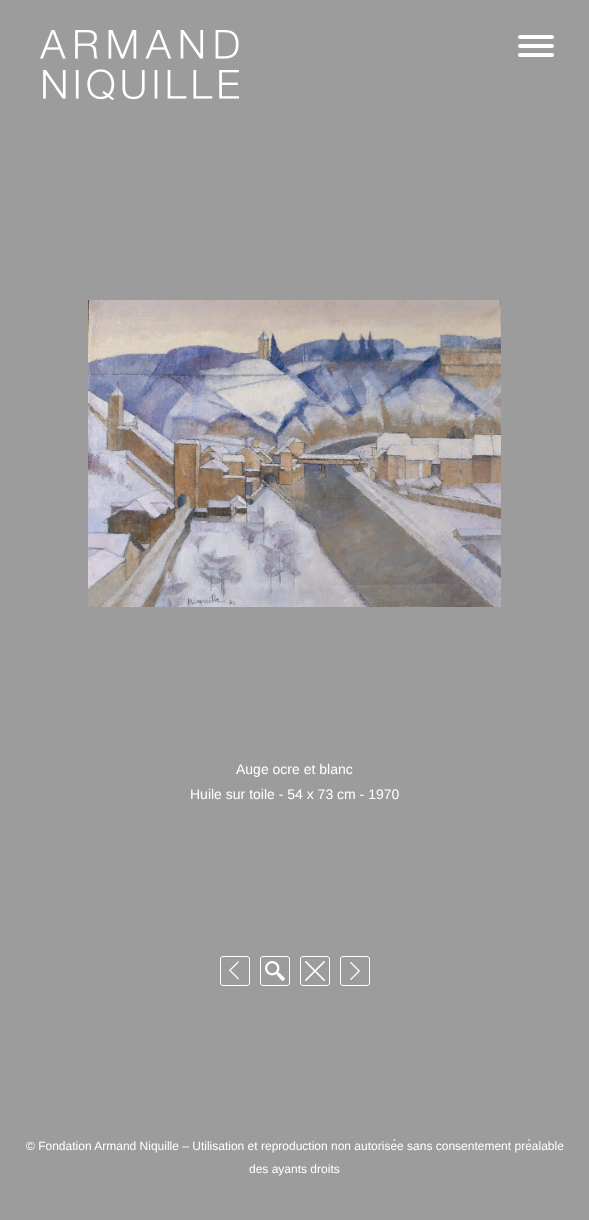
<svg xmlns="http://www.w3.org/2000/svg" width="589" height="1220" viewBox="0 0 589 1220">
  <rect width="100%" height="100%" fill="#9c9c9d"/>
  <image x="40" y="30" width="199" height="70" href="img1.png"/>
  <rect x="518" y="35" width="36" height="4" rx="2" fill="#ffffff"/>
  <rect x="518" y="44" width="36" height="4" rx="2" fill="#ffffff"/>
  <rect x="518" y="53" width="36" height="4" rx="2" fill="#ffffff"/>
  <image x="88" y="300" width="413" height="307" href="img2.png"/>
  <text x="236" y="774" font-family="Liberation Sans" font-size="14" fill="#ffffff">Auge ocre et blanc</text>
  <text x="190" y="799" font-family="Liberation Sans" font-size="14" fill="#ffffff">Huile sur toile - 54 x 73 cm - 1970</text>
  <rect x="220.5" y="956.5" width="29" height="29" rx="2.5" fill="none" stroke="#ffffff"/>
  <image x="229" y="961" width="10" height="19" href="img3.png"/>
  <rect x="260.5" y="956.5" width="29" height="29" rx="2.5" fill="none" stroke="#ffffff"/>
  <image x="265" y="961" width="20" height="20" href="img4.png"/>
  <rect x="300.5" y="956.5" width="29" height="29" rx="2.5" fill="none" stroke="#ffffff"/>
  <image x="305" y="961" width="20" height="20" href="img5.png"/>
  <rect x="340.5" y="956.5" width="29" height="29" rx="2.5" fill="none" stroke="#ffffff"/>
  <image x="350" y="962" width="10" height="18" href="img6.png"/>
  <text x="26" y="1150" font-family="Liberation Sans" font-size="12" fill="#ffffff">© Fondation Armand Niquille – Utilisation et reproduction non autorisée sans consentement préalable</text>
  <text x="249" y="1173" font-family="Liberation Sans" font-size="12" fill="#ffffff">des ayants droits</text>
</svg>
